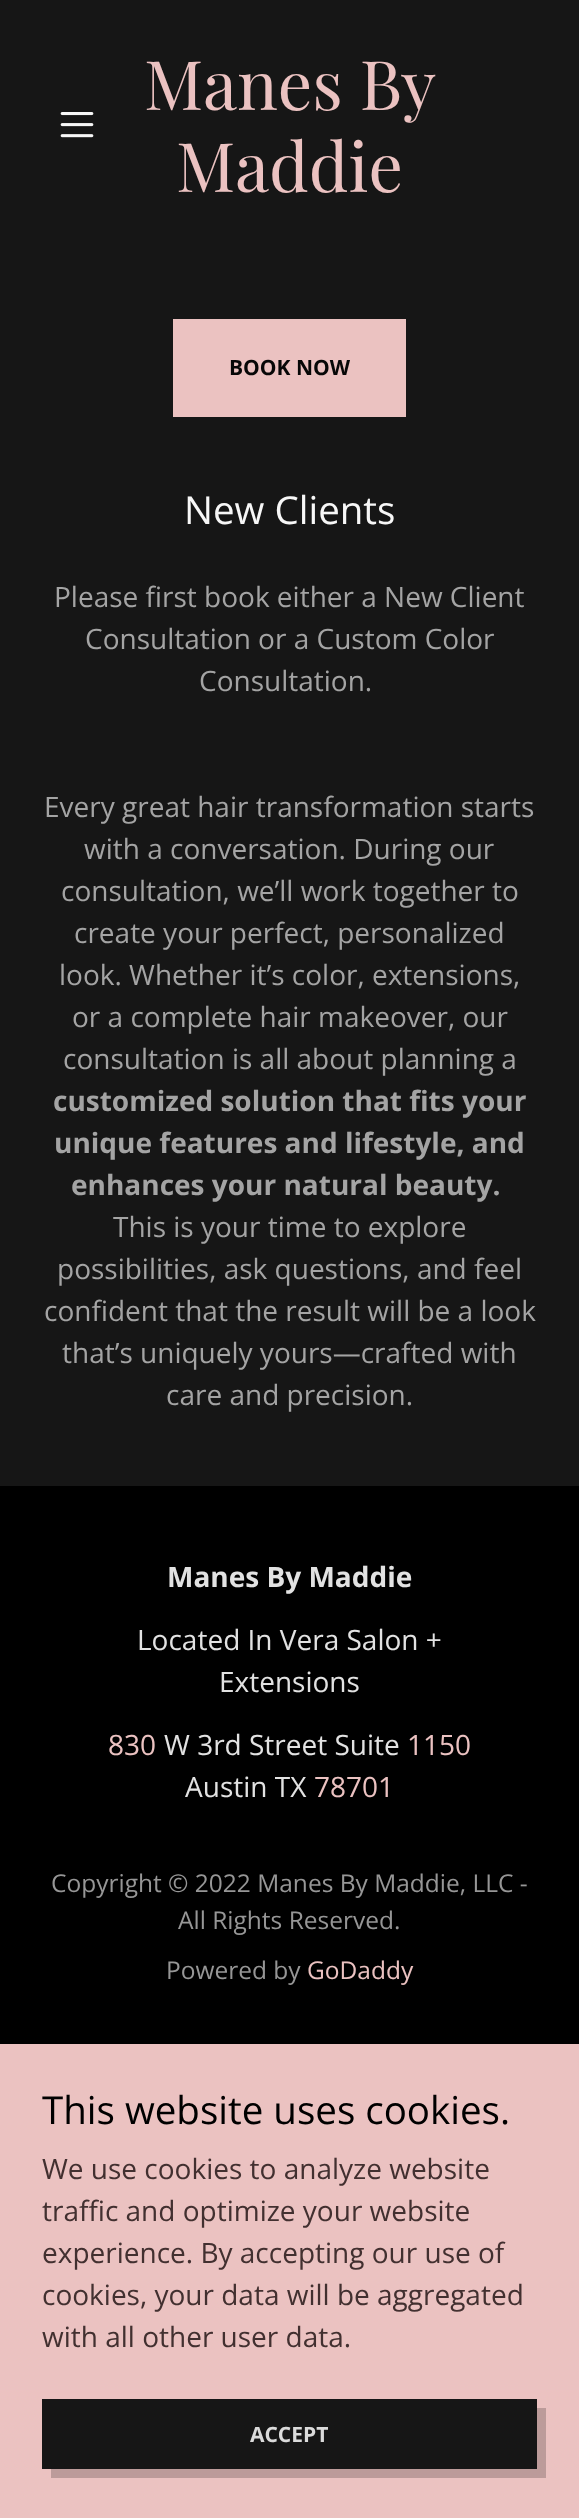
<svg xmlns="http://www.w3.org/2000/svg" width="579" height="2518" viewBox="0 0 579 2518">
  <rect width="100%" height="100%" fill="#000000"/>
  <rect x="0" y="0" width="579" height="1486" fill="#161616"/>
  <image x="60" y="112" width="34" height="26" href="img1.png"/>
  <text x="144" y="110" font-family="Playfair Display" font-size="68.25" fill="#ebc2c1">Manes By</text>
  <text x="176" y="192" font-family="Playfair Display" font-size="68.25" fill="#ebc2c1">Maddie</text>
  <rect x="173" y="319" width="233" height="98" fill="#ebc2c1"/>
  <text x="229" y="375" font-family="Open Sans" font-size="21" font-weight="bold" fill="#070707">BOOK NOW</text>
  <text x="184" y="524" font-family="Open Sans" font-size="38.5" fill="#f7f7f7">New Clients</text>
  <text x="54" y="607" font-family="Open Sans" font-size="28" fill="#a4a4a4">Please first book either a New Client</text>
  <text x="85" y="649" font-family="Open Sans" font-size="28" fill="#a4a4a4">Consultation or a Custom Color</text>
  <text x="199" y="691" font-family="Open Sans" font-size="28" fill="#a4a4a4">Consultation.</text>
  <text x="44" y="817" font-family="Open Sans" font-size="28" fill="#a4a4a4">Every great hair transformation starts</text>
  <text x="84" y="859" font-family="Open Sans" font-size="28" fill="#a4a4a4">with a conversation. During our</text>
  <text x="61" y="901" font-family="Open Sans" font-size="28" fill="#a4a4a4">consultation, we’ll work together to</text>
  <text x="74" y="943" font-family="Open Sans" font-size="28" fill="#a4a4a4">create your perfect, personalized</text>
  <text x="59" y="985" font-family="Open Sans" font-size="28" fill="#a4a4a4">look. Whether it’s color, extensions,</text>
  <text x="72" y="1027" font-family="Open Sans" font-size="28" fill="#a4a4a4">or a complete hair makeover, our</text>
  <text x="63" y="1069" font-family="Open Sans" font-size="28" fill="#a4a4a4">consultation is all about planning a</text>
  <text x="53" y="1111" font-family="Open Sans" font-size="28" font-weight="bold" fill="#a4a4a4">customized solution that fits your</text>
  <text x="54" y="1153" font-family="Open Sans" font-size="28" font-weight="bold" fill="#a4a4a4">unique features and lifestyle, and</text>
  <text x="71" y="1195" font-family="Open Sans" font-size="28" font-weight="bold" fill="#a4a4a4">enhances your natural beauty.</text>
  <text x="113" y="1237" font-family="Open Sans" font-size="28" fill="#a4a4a4">This is your time to explore</text>
  <text x="57" y="1279" font-family="Open Sans" font-size="28" fill="#a4a4a4">possibilities, ask questions, and feel</text>
  <text x="44" y="1321" font-family="Open Sans" font-size="28" fill="#a4a4a4">confident that the result will be a look</text>
  <text x="62" y="1363" font-family="Open Sans" font-size="28" fill="#a4a4a4">that’s uniquely yours—crafted with</text>
  <text x="166" y="1405" font-family="Open Sans" font-size="28" fill="#a4a4a4">care and precision.</text>
  <text x="167" y="1587" font-family="Open Sans" font-size="28" font-weight="bold" fill="#e2e2e2">Manes By Maddie</text>
  <text x="137" y="1650" font-family="Open Sans" font-size="28" fill="#e2e2e2">Located In Vera Salon +</text>
  <text x="219" y="1692" font-family="Open Sans" font-size="28" fill="#e2e2e2">Extensions</text>
  <text x="108" y="1755" font-family="Open Sans" font-size="28" fill="#ebc2c1">830</text>
  <text x="164" y="1755" font-family="Open Sans" font-size="28" fill="#e2e2e2">W 3rd Street Suite</text>
  <text x="407" y="1755" font-family="Open Sans" font-size="28" fill="#ebc2c1">1150</text>
  <text x="185" y="1797" font-family="Open Sans" font-size="28" fill="#e2e2e2">Austin TX</text>
  <text x="314" y="1797" font-family="Open Sans" font-size="28" fill="#ebc2c1">78701</text>
  <text x="51" y="1892" font-family="Open Sans" font-size="24.5" fill="#969696">Copyright © 2022 Manes By Maddie, LLC -</text>
  <text x="178" y="1929" font-family="Open Sans" font-size="24.5" fill="#969696">All Rights Reserved.</text>
  <text x="166" y="1979" font-family="Open Sans" font-size="24.5" fill="#969696">Powered by</text>
  <text x="307" y="1979" font-family="Open Sans" font-size="24.5" fill="#ebc2c1">GoDaddy</text>
  <rect x="0" y="2044" width="579" height="474" fill="#ebc2c1"/>
  <text x="42" y="2124" font-family="Open Sans" font-size="38.5" fill="#000000">This website uses cookies.</text>
  <text x="42" y="2179" font-family="Open Sans" font-size="28" fill="#423030">We use cookies to analyze website</text>
  <text x="42" y="2221" font-family="Open Sans" font-size="28" fill="#423030">traffic and optimize your website</text>
  <text x="42" y="2263" font-family="Open Sans" font-size="28" fill="#423030">experience. By accepting our use of</text>
  <text x="42" y="2305" font-family="Open Sans" font-size="28" fill="#423030">cookies, your data will be aggregated</text>
  <text x="42" y="2347" font-family="Open Sans" font-size="28" fill="#423030">with all other user data.</text>
  <rect x="42" y="2399" width="495" height="70" fill="#161616"/>
  <path d="M51 2469V2478H546V2408H537V2469Z" fill="#bc9b9a"/>
  <text x="250" y="2442" font-family="Open Sans" font-size="21" font-weight="bold" fill="#dbdbdb">ACCEPT</text>
</svg>
